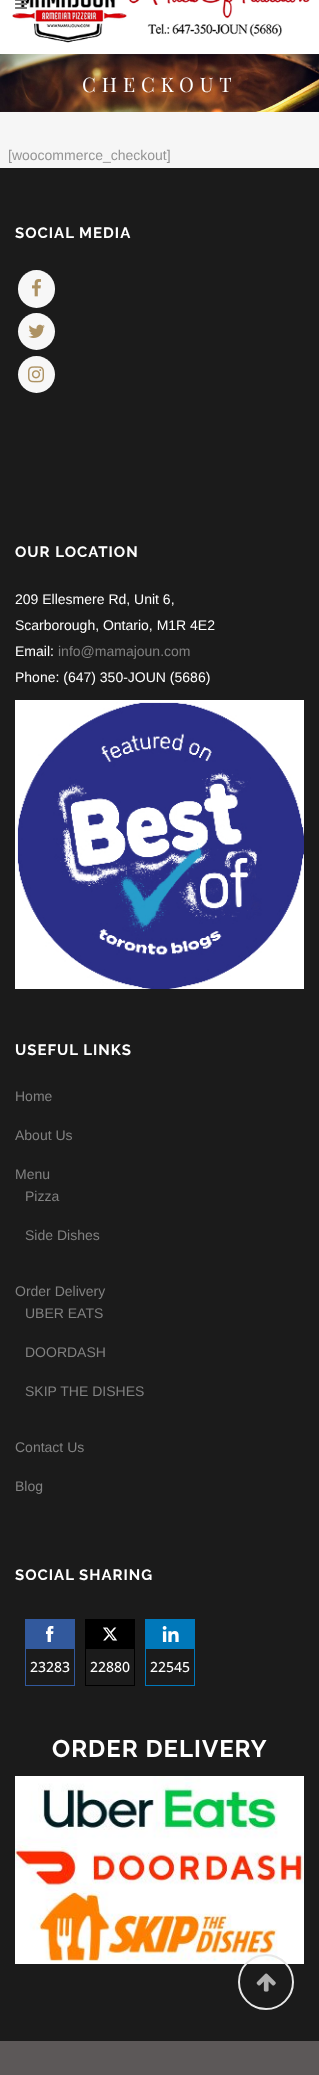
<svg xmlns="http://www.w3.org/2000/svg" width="319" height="2075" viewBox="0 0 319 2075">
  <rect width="100%" height="100%" fill="#f6f6f6"/>
  <rect x="0" y="0" width="319" height="54" fill="#ffffff"/>
  <image x="12" y="0" width="298" height="43" href="img1.png"/>
  <image x="15" y="0" width="12" height="9" href="img2.png"/>
  <image x="0" y="54" width="319" height="58" href="img3.png"/>
  <text x="82" y="92" font-family="Playfair Display" font-size="20" letter-spacing="6" fill="#ffffff">CHECKOUT</text>
  <text x="8" y="160" font-family="Liberation Sans" font-size="14" fill="#949494">[woocommerce_checkout]</text>
  <rect x="0" y="168" width="319" height="1873" fill="#1b1b1b"/>
  <text x="15" y="238" font-family="Raleway" font-size="15" font-weight="bold" letter-spacing="1" fill="#ffffff">SOCIAL MEDIA</text>
  <rect x="18" y="270" width="37" height="38" rx="18.5" fill="#f7f7f7"/>
  <image x="32" y="279" width="9" height="18" href="img4.png"/>
  <circle cx="36.5" cy="331.5" r="18.5" fill="#f7f7f7"/>
  <image x="28" y="324" width="17" height="14" href="img5.png"/>
  <circle cx="36.5" cy="374.5" r="18.5" fill="#f7f7f7"/>
  <image x="28" y="366" width="16" height="17" href="img6.png"/>
  <text x="15" y="557" font-family="Raleway" font-size="15" font-weight="bold" letter-spacing="1" fill="#ffffff">OUR LOCATION</text>
  <text x="15" y="604" font-family="Liberation Sans" font-size="14" fill="#ffffff">209 Ellesmere Rd, Unit 6,</text>
  <text x="15" y="630" font-family="Liberation Sans" font-size="14" fill="#ffffff">Scarborough, Ontario, M1R 4E2</text>
  <text x="15" y="656" font-family="Liberation Sans" font-size="14" fill="#ffffff">Email:</text>
  <text x="58" y="656" font-family="Liberation Sans" font-size="14" fill="#818181">info@mamajoun.com</text>
  <text x="15" y="682" font-family="Liberation Sans" font-size="14" fill="#ffffff">Phone: (647) 350-JOUN (5686)</text>
  <image x="15" y="700" width="289" height="289" href="img7.png"/>
  <text x="15" y="1055" font-family="Raleway" font-size="15" font-weight="bold" letter-spacing="1" fill="#ffffff">USEFUL LINKS</text>
  <text x="15" y="1101" font-family="Liberation Sans" font-size="14" fill="#818181">Home</text>
  <text x="15" y="1140" font-family="Liberation Sans" font-size="14" fill="#818181">About Us</text>
  <text x="15" y="1179" font-family="Liberation Sans" font-size="14" fill="#818181">Menu</text>
  <text x="25" y="1201" font-family="Liberation Sans" font-size="14" fill="#818181">Pizza</text>
  <text x="25" y="1240" font-family="Liberation Sans" font-size="14" fill="#818181">Side Dishes</text>
  <text x="15" y="1296" font-family="Liberation Sans" font-size="14" fill="#818181">Order Delivery</text>
  <text x="25" y="1318" font-family="Liberation Sans" font-size="14" fill="#818181">UBER EATS</text>
  <text x="25" y="1357" font-family="Liberation Sans" font-size="14" fill="#818181">DOORDASH</text>
  <text x="25" y="1396" font-family="Liberation Sans" font-size="14" fill="#818181">SKIP THE DISHES</text>
  <text x="15" y="1452" font-family="Liberation Sans" font-size="14" fill="#818181">Contact Us</text>
  <text x="15" y="1491" font-family="Liberation Sans" font-size="14" fill="#818181">Blog</text>
  <text x="15" y="1580" font-family="Raleway" font-size="15" font-weight="bold" letter-spacing="1" fill="#ffffff">SOCIAL SHARING</text>
  <rect x="25.5" y="1619.5" width="49" height="66" fill="none" stroke="#32599d"/>
  <rect x="26" y="1620" width="48" height="29" fill="#32599d"/>
  <image x="46" y="1626" width="8" height="16" href="img8.png"/>
  <text x="30" y="1672" font-family="Open Sans" font-size="14" font-weight="500" fill="#ffffff">23283</text>
  <rect x="85.5" y="1619.5" width="49" height="66" fill="none" stroke="#000000"/>
  <rect x="86" y="1620" width="48" height="29" fill="#000000"/>
  <image x="103" y="1627" width="15" height="14" href="img9.png"/>
  <text x="90" y="1672" font-family="Open Sans" font-size="14" font-weight="500" fill="#ffffff">22880</text>
  <rect x="145.5" y="1619.5" width="49" height="66" fill="none" stroke="#0078ba"/>
  <rect x="146" y="1620" width="48" height="29" fill="#0078ba"/>
  <image x="162" y="1626" width="17" height="16" href="img10.png"/>
  <text x="150" y="1672" font-family="Open Sans" font-size="14" font-weight="500" fill="#ffffff">22545</text>
  <text x="52" y="1757" font-family="Raleway" font-size="24" font-weight="bold" letter-spacing="1" fill="#ffffff">ORDER DELIVERY</text>
  <image x="15" y="1776" width="289" height="188" href="img11.png"/>
  <rect x="0" y="2041" width="319" height="34" fill="#5c5858"/>
  <circle cx="266" cy="1982" r="27" fill="none" stroke="#e8e8e8" stroke-width="2"/>
  <image x="256" y="1973" width="20" height="19" href="img12.png"/>
</svg>
